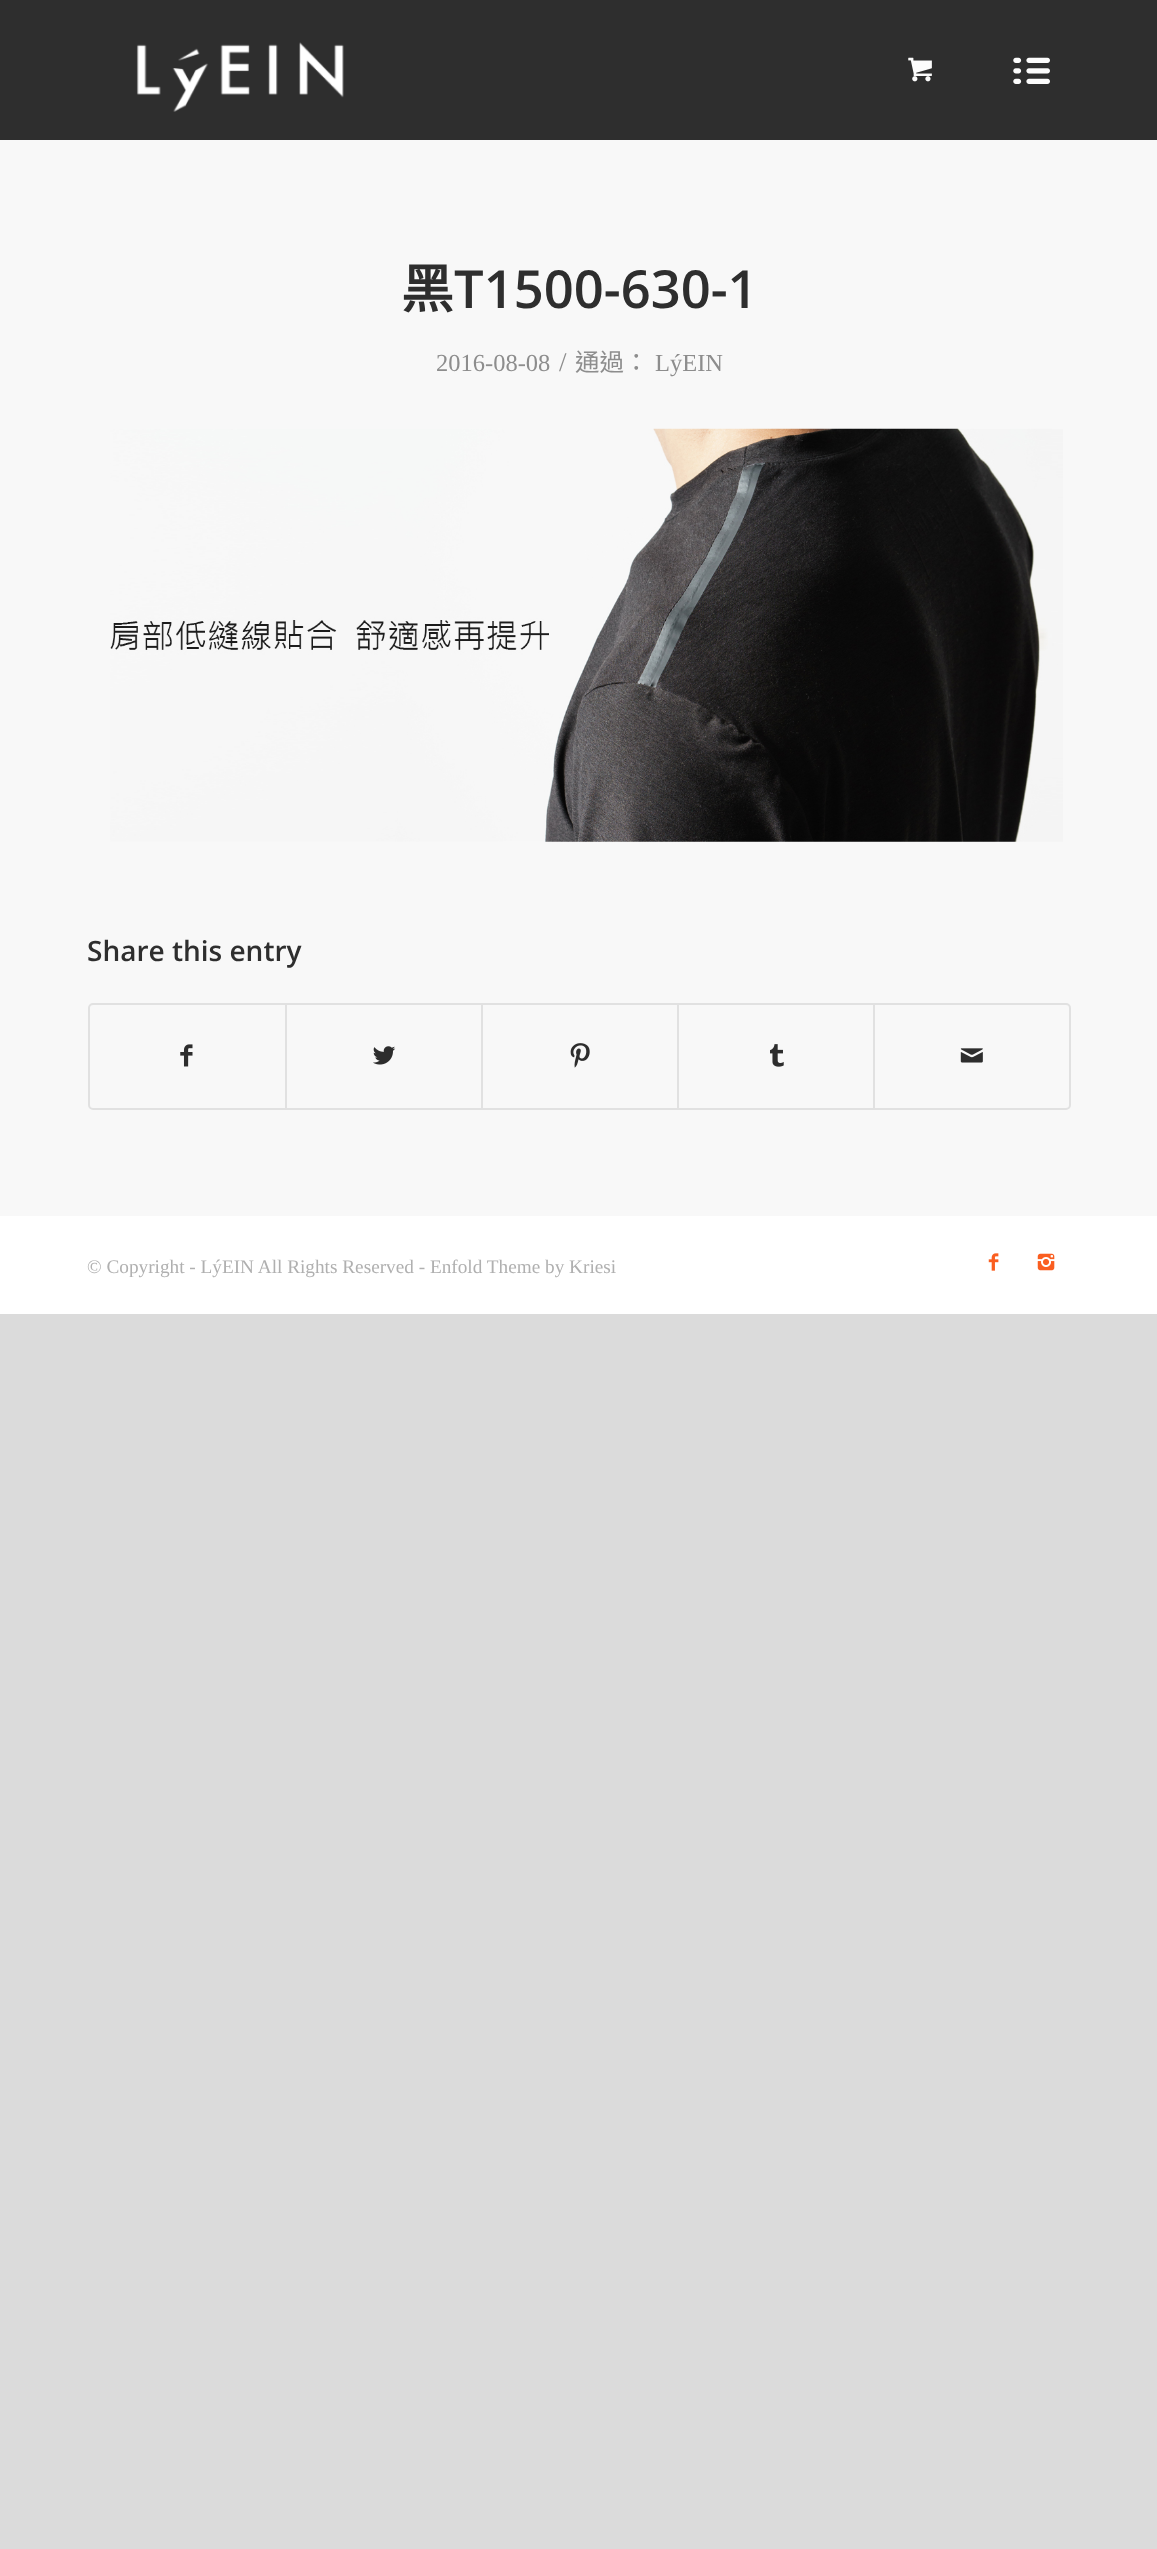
<svg xmlns="http://www.w3.org/2000/svg" width="1157" height="2549" viewBox="0 0 1157 2549">
  <rect width="100%" height="100%" fill="#dbdbdb"/>
  <rect x="0" y="0" width="1157" height="140" fill="#2e2e2e"/>
  <image x="136" y="42" width="208" height="70" href="img1.png"/>
  <image x="908" y="57" width="24" height="25" href="img2.png"/>
  <image x="1013" y="57" width="37" height="27" href="img3.png"/>
  <rect x="0" y="140" width="1157" height="1076" fill="#f8f8f8"/>
  <text x="401" y="308" font-family="Noto Sans CJK TC" font-size="52.5" font-weight="bold" fill="#2e2e2e">黑</text>
  <text x="454" y="308" font-family="Open Sans" font-size="52.5" font-weight="600" fill="#2e2e2e">T1500-630-1</text>
  <text x="436" y="371" font-family="Liberation Serif" font-size="24.5" fill="#8d8d8d">2016-08-08</text>
  <text x="559" y="371" font-family="Liberation Serif" font-size="27" fill="#8d8d8d">/</text>
  <text x="575" y="371" font-family="Noto Sans CJK TC" font-size="24.5" fill="#8d8d8d">通過：</text>
  <text x="655" y="371" font-family="Liberation Serif" font-size="24.5" fill="#8d8d8d">LýEIN</text>
  <image x="110" y="428" width="953" height="414" href="img4.png"/>
  <text x="87" y="961" font-family="Open Sans" font-size="28" font-weight="600" fill="#2e2e2e">Share this entry</text>
  <rect x="89" y="1004" width="981" height="105" rx="4" fill="none" stroke="#e1e1e1" stroke-width="2"/>
  <image x="180" y="1044" width="13" height="23" href="img5.png"/>
  <rect x="285" y="1005" width="2" height="103" fill="#e1e1e1"/>
  <image x="373" y="1046" width="23" height="19" href="img6.png"/>
  <rect x="481" y="1005" width="2" height="103" fill="#e1e1e1"/>
  <image x="570" y="1043" width="20" height="25" href="img7.png"/>
  <rect x="677" y="1005" width="2" height="103" fill="#e1e1e1"/>
  <image x="770" y="1044" width="14" height="23" href="img8.png"/>
  <rect x="873" y="1005" width="2" height="103" fill="#e1e1e1"/>
  <image x="960" y="1048" width="23" height="15" href="img9.png"/>
  <rect x="0" y="1216" width="1157" height="98" fill="#ffffff"/>
  <text x="87" y="1273" font-family="Liberation Serif" font-size="19.25" fill="#b0b0b0">© Copyright - LýEIN All Rights Reserved - Enfold Theme by Kriesi</text>
  <image x="988" y="1253" width="11" height="18" href="img10.png"/>
  <image x="1037" y="1253" width="18" height="18" href="img11.png"/>
</svg>
